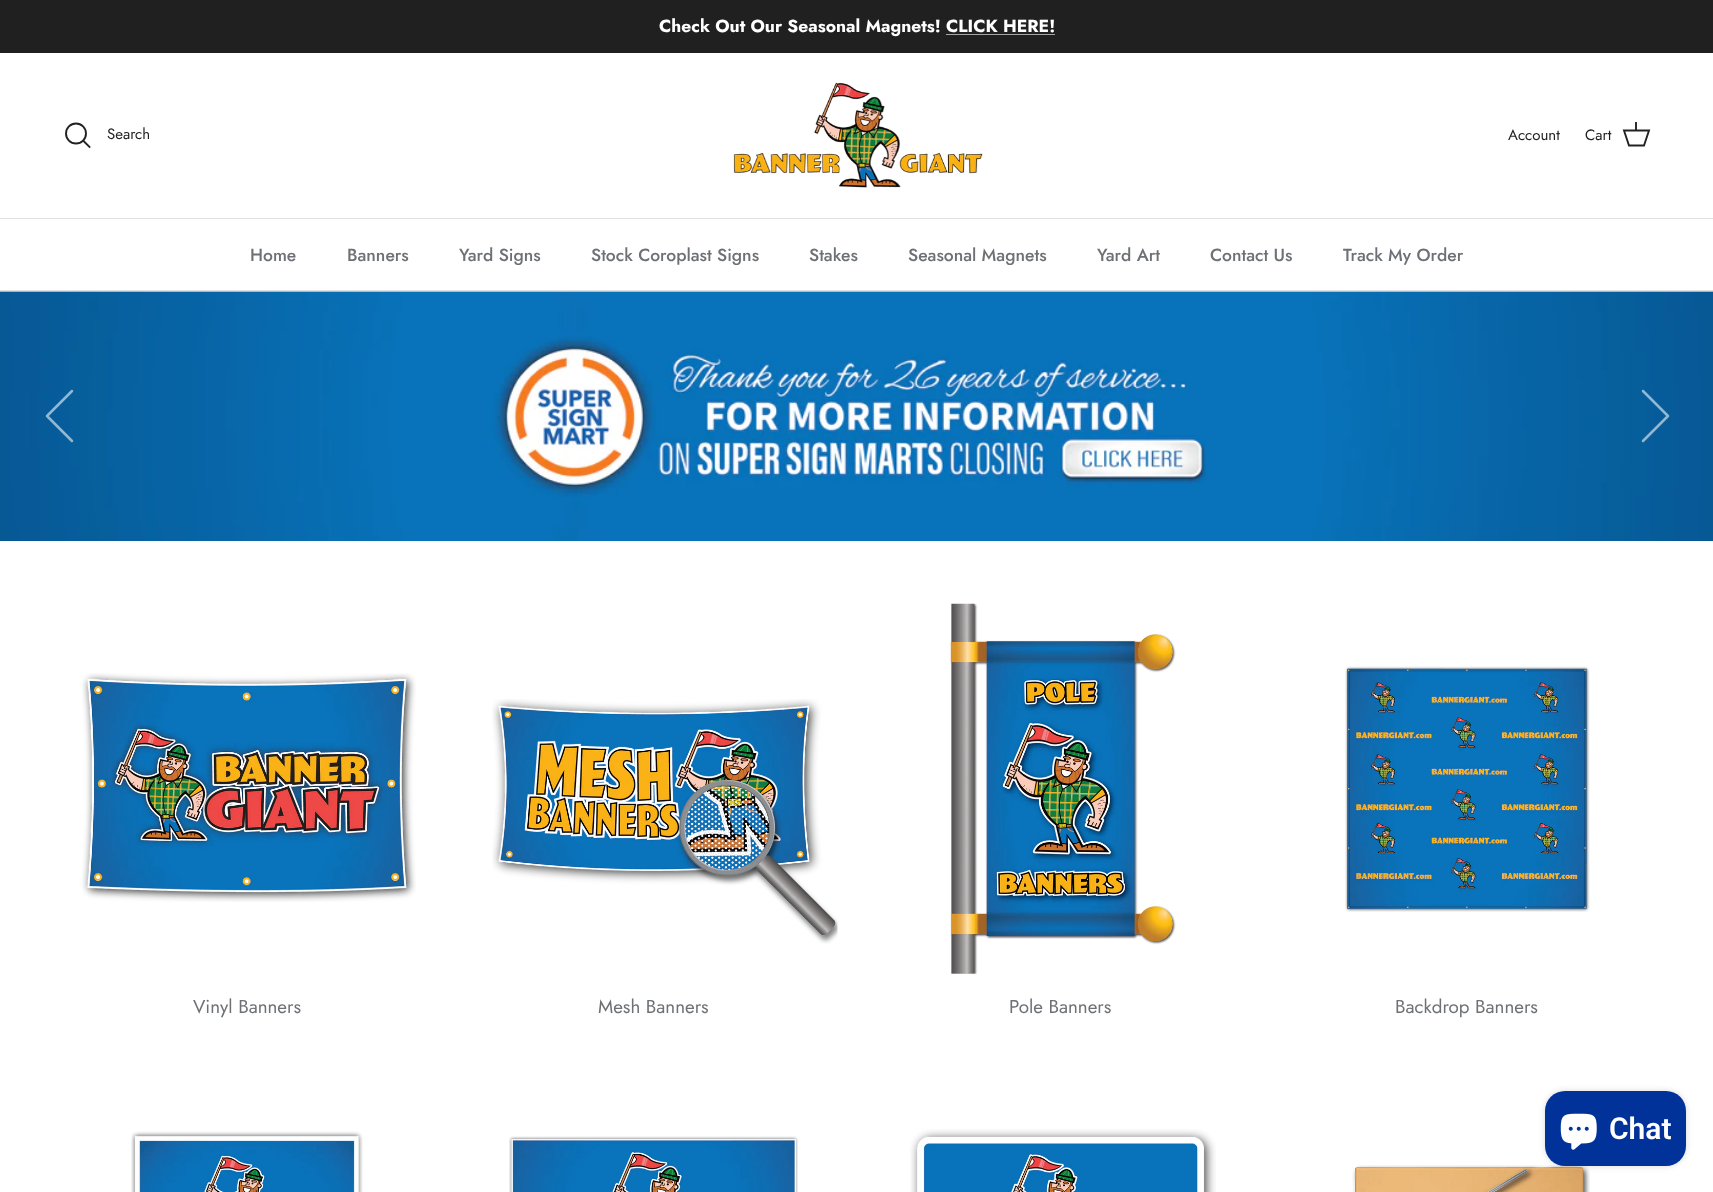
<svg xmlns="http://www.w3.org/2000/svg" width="1713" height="1192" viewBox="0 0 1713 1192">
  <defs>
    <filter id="blur1" x="-50%" y="-200%" width="200%" height="500%"><feGaussianBlur stdDeviation="3"/></filter>
  </defs>
  <rect width="100%" height="100%" fill="#ffffff"/>
  <rect x="0" y="0" width="1713" height="53" fill="#202020"/>
  <text x="659" y="32" font-family="Jost" font-size="17.5" font-weight="bold" fill="#ffffff">Check Out Our Seasonal Magnets! CLICK HERE!</text>
  <rect x="946" y="34" width="109" height="1" fill="#a6a6a6"/>
  <rect x="0" y="218" width="1713" height="1" fill="#e2e2e2"/>
  <circle cx="76" cy="133.5" r="10" fill="none" stroke="#202223" stroke-width="1.9"/>
  <text x="107" y="139" font-family="Jost" font-size="15" fill="#202223">Search</text>
  <path d="M83.5 141L89.5 147" fill="none" stroke="#202223" stroke-width="1.9" stroke-linecap="square"/>
  <image x="733" y="82" width="250" height="106" href="img1.png"/>
  <text x="1508" y="140" font-family="Jost" font-size="15" fill="#202223">Account</text>
  <text x="1585" y="140" font-family="Jost" font-size="15" fill="#202223">Cart</text>
  <path d="M1624 130.5H1649L1644 145.5H1629Z" fill="none" stroke="#202223" stroke-width="1.9"/>
  <rect x="1635" y="122" width="2" height="9" fill="#202223" fill-opacity="0.95"/>
  <rect x="0" y="290" width="1713" height="1" fill="#e2e2e2"/>
  <text x="250" y="261" font-family="Jost" font-size="17.5" font-weight="500" fill="#6d7175">Home</text>
  <text x="347" y="261" font-family="Jost" font-size="17.5" font-weight="500" fill="#6d7175">Banners</text>
  <text x="459" y="261" font-family="Jost" font-size="17.5" font-weight="500" fill="#6d7175">Yard Signs</text>
  <text x="591" y="261" font-family="Jost" font-size="17.5" font-weight="500" fill="#6d7175">Stock Coroplast Signs</text>
  <text x="809" y="261" font-family="Jost" font-size="17.5" font-weight="500" fill="#6d7175">Stakes</text>
  <text x="908" y="261" font-family="Jost" font-size="17.5" font-weight="500" fill="#6d7175">Seasonal Magnets</text>
  <text x="1097" y="261" font-family="Jost" font-size="17.5" font-weight="500" fill="#6d7175">Yard Art</text>
  <text x="1210" y="261" font-family="Jost" font-size="17.5" font-weight="500" fill="#6d7175">Contact Us</text>
  <text x="1343" y="261" font-family="Jost" font-size="17.5" font-weight="500" fill="#6d7175">Track My Order</text>
  <image x="0" y="291" width="1713" height="250" href="img2.png"/>
  <path d="M72 441L47 416L72 391" fill="none" stroke="#ffffff" stroke-opacity="0.56" stroke-width="2.5" stroke-linecap="round" stroke-linejoin="round"/>
  <path d="M1643 441L1668 416L1643 391" fill="none" stroke="#ffffff" stroke-opacity="0.56" stroke-width="2.5" stroke-linecap="round" stroke-linejoin="round"/>
  <image x="82" y="673" width="334" height="229" href="img3.png"/>
  <text x="193" y="1013" font-family="Jost" font-size="18.75" fill="#6d7175">Vinyl Banners</text>
  <image x="492" y="699" width="346" height="245" href="img4.png"/>
  <text x="598" y="1013" font-family="Jost" font-size="18.75" fill="#6d7175">Mesh Banners</text>
  <image x="950" y="603" width="226" height="371" href="img5.png"/>
  <text x="1009" y="1013" font-family="Jost" font-size="18.75" fill="#6d7175">Pole Banners</text>
  <image x="1345" y="666" width="245" height="246" href="img6.png"/>
  <text x="1395" y="1013" font-family="Jost" font-size="18.75" fill="#6d7175">Backdrop Banners</text>
  <image x="131" y="1131" width="232" height="61" href="img7.png"/>
  <image x="509" y="1136" width="289" height="56" href="img8.png"/>
  <image x="910" y="1129" width="306" height="63" href="img9.png"/>
  <image x="1352" y="1165" width="238" height="27" href="img10.png"/>
  <rect x="1545" y="1091" width="141" height="75" rx="20" fill="#000000" fill-opacity="0.15" filter="url(#blur1)"/>
  <rect x="1545" y="1091" width="141" height="75" rx="20" fill="#013299"/>
  <image x="1560" y="1113" width="37" height="37" href="img11.png"/>
  <text x="1609" y="1139" font-family="Roboto" font-size="30" font-weight="600" fill="#ffffff">Chat</text>
</svg>
